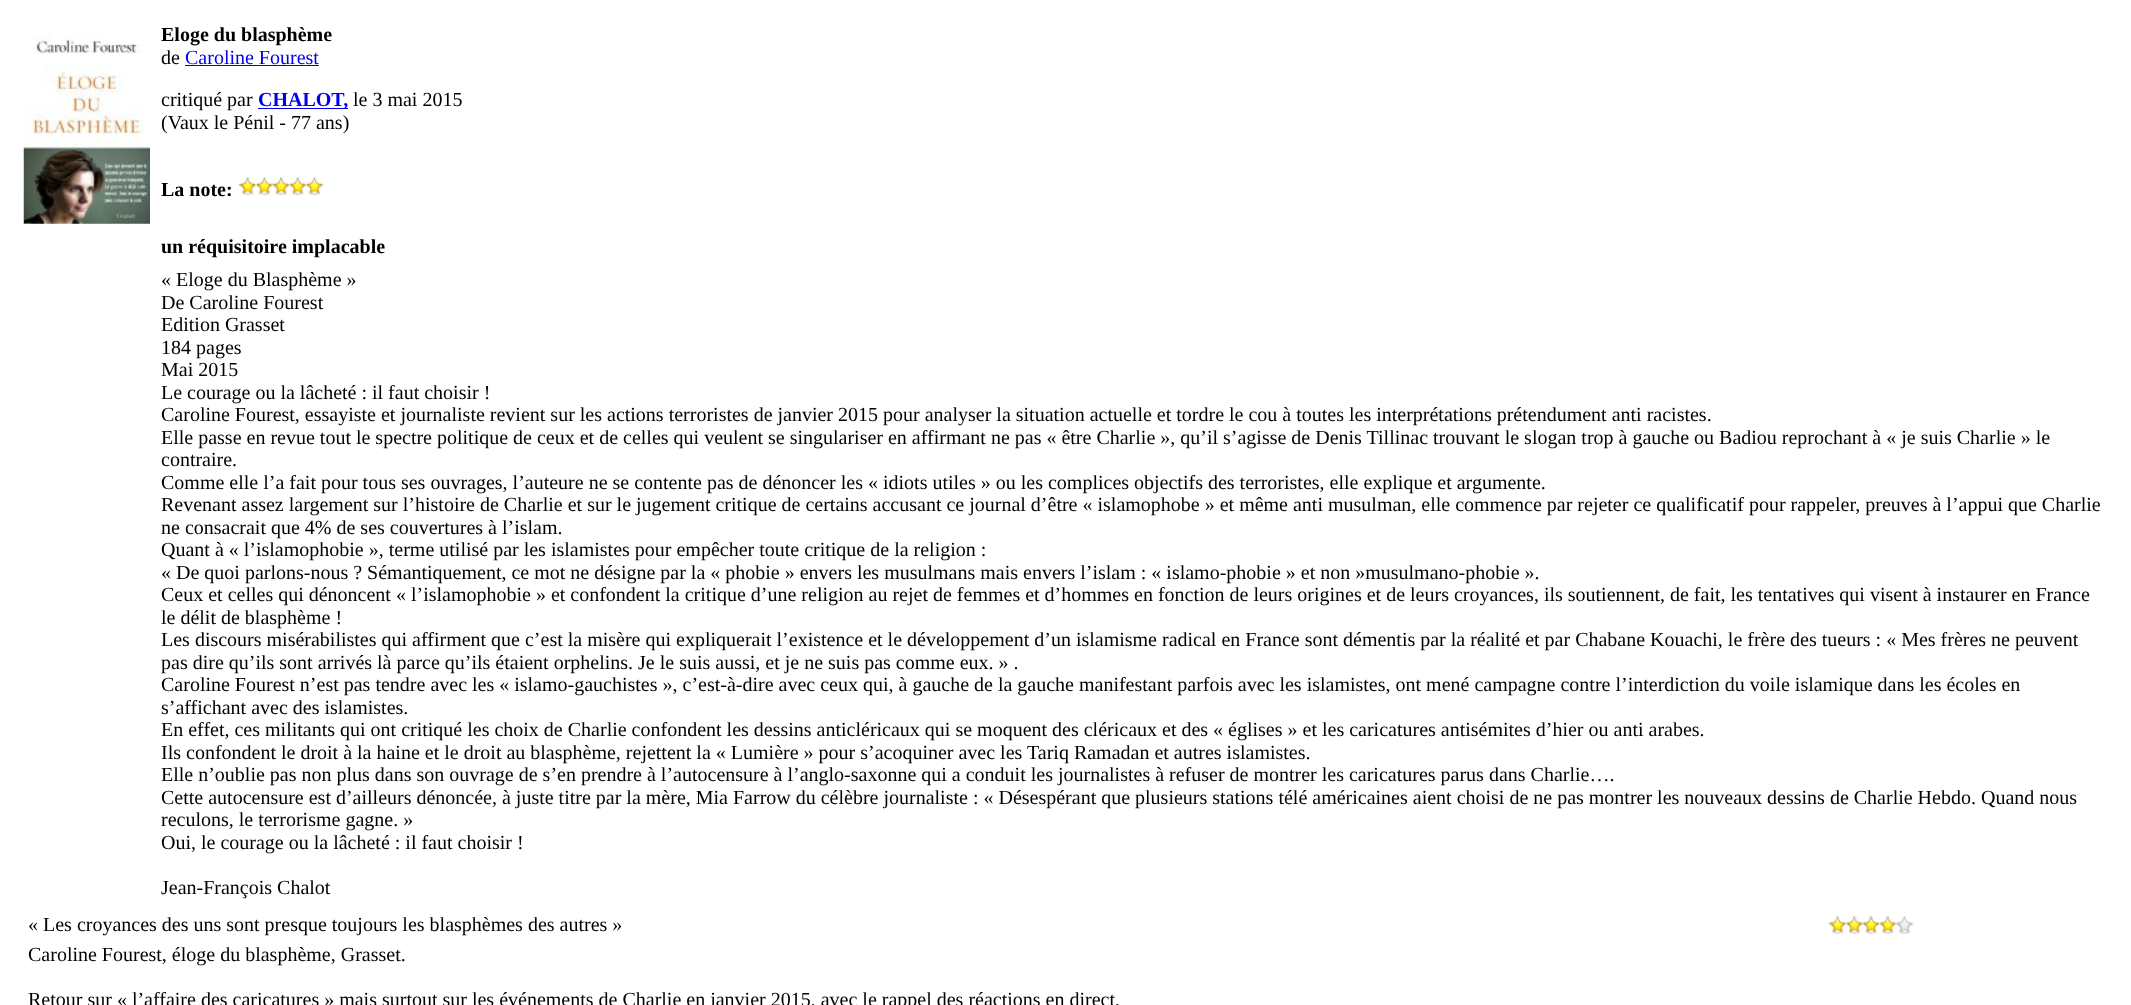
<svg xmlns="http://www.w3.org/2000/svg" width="2131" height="1005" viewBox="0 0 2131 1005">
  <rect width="100%" height="100%" fill="#ffffff"/>
  <image x="23" y="34" width="127" height="190" href="img1.png"/>
  <text x="161" y="41" font-family="Liberation Serif" font-size="20" font-weight="bold" fill="#000000">Eloge du blasphème</text>
  <text x="161" y="64" font-family="Liberation Serif" font-size="20" fill="#000000">de</text>
  <text x="185" y="64" font-family="Liberation Serif" font-size="20" fill="#0000ee">Caroline Fourest</text>
  <rect x="185" y="65" width="134" height="1" fill="#0000ee"/>
  <text x="161" y="106" font-family="Liberation Serif" font-size="20" fill="#000000">critiqué par</text>
  <rect x="258" y="108" width="90" height="1" fill="#0000ee"/>
  <text x="258" y="106" font-family="Liberation Serif" font-size="20" font-weight="bold" fill="#0000ee">CHALOT,</text>
  <text x="353" y="106" font-family="Liberation Serif" font-size="20" fill="#000000">le 3 mai 2015</text>
  <text x="161" y="129" font-family="Liberation Serif" font-size="20" fill="#000000">(Vaux le Pénil - 77 ans)</text>
  <text x="161" y="196" font-family="Liberation Serif" font-size="20" font-weight="bold" fill="#000000">La note:</text>
  <image x="238" y="177" width="86" height="19" href="img2.png"/>
  <text x="161" y="253" font-family="Liberation Serif" font-size="20" font-weight="bold" fill="#000000">un réquisitoire implacable</text>
  <text x="161" y="286" font-family="Liberation Serif" font-size="20" fill="#000000">« Eloge du Blasphème »</text>
  <text x="161" y="309" font-family="Liberation Serif" font-size="20" fill="#000000">De Caroline Fourest</text>
  <text x="161" y="331" font-family="Liberation Serif" font-size="20" fill="#000000">Edition Grasset</text>
  <text x="161" y="354" font-family="Liberation Serif" font-size="20" fill="#000000">184 pages</text>
  <text x="161" y="376" font-family="Liberation Serif" font-size="20" fill="#000000">Mai 2015</text>
  <text x="161" y="399" font-family="Liberation Serif" font-size="20" fill="#000000">Le courage ou la lâcheté : il faut choisir !</text>
  <text x="161" y="421" font-family="Liberation Serif" font-size="20" fill="#000000">Caroline Fourest, essayiste et journaliste revient sur les actions terroristes de janvier 2015 pour analyser la situation actuelle et tordre le cou à toutes les interprétations prétendument anti racistes.</text>
  <text x="161" y="444" font-family="Liberation Serif" font-size="20" fill="#000000">Elle passe en revue tout le spectre politique de ceux et de celles qui veulent se singulariser en affirmant ne pas « être Charlie », qu’il s’agisse de Denis Tillinac trouvant le slogan trop à gauche ou Badiou reprochant à « je suis Charlie » le</text>
  <text x="161" y="466" font-family="Liberation Serif" font-size="20" fill="#000000">contraire.</text>
  <text x="161" y="489" font-family="Liberation Serif" font-size="20" fill="#000000">Comme elle l’a fait pour tous ses ouvrages, l’auteure ne se contente pas de dénoncer les « idiots utiles » ou les complices objectifs des terroristes, elle explique et argumente.</text>
  <text x="161" y="511" font-family="Liberation Serif" font-size="20" fill="#000000">Revenant assez largement sur l’histoire de Charlie et sur le jugement critique de certains accusant ce journal d’être « islamophobe » et même anti musulman, elle commence par rejeter ce qualificatif pour rappeler, preuves à l’appui que Charlie</text>
  <text x="161" y="534" font-family="Liberation Serif" font-size="20" fill="#000000">ne consacrait que 4% de ses couvertures à l’islam.</text>
  <text x="161" y="556" font-family="Liberation Serif" font-size="20" fill="#000000">Quant à « l’islamophobie », terme utilisé par les islamistes pour empêcher toute critique de la religion :</text>
  <text x="161" y="579" font-family="Liberation Serif" font-size="20" fill="#000000">« De quoi parlons-nous ? Sémantiquement, ce mot ne désigne par la « phobie » envers les musulmans mais envers l’islam : « islamo-phobie » et non »musulmano-phobie ».</text>
  <text x="161" y="601" font-family="Liberation Serif" font-size="20" fill="#000000">Ceux et celles qui dénoncent « l’islamophobie » et confondent la critique d’une religion au rejet de femmes et d’hommes en fonction de leurs origines et de leurs croyances, ils soutiennent, de fait, les tentatives qui visent à instaurer en France</text>
  <text x="161" y="624" font-family="Liberation Serif" font-size="20" fill="#000000">le délit de blasphème !</text>
  <text x="161" y="646" font-family="Liberation Serif" font-size="20" fill="#000000">Les discours misérabilistes qui affirment que c’est la misère qui expliquerait l’existence et le développement d’un islamisme radical en France sont démentis par la réalité et par Chabane Kouachi, le frère des tueurs : « Mes frères ne peuvent</text>
  <text x="161" y="669" font-family="Liberation Serif" font-size="20" fill="#000000">pas dire qu’ils sont arrivés là parce qu’ils étaient orphelins. Je le suis aussi, et je ne suis pas comme eux. » .</text>
  <text x="161" y="691" font-family="Liberation Serif" font-size="20" fill="#000000">Caroline Fourest n’est pas tendre avec les « islamo-gauchistes », c’est-à-dire avec ceux qui, à gauche de la gauche manifestant parfois avec les islamistes, ont mené campagne contre l’interdiction du voile islamique dans les écoles en</text>
  <text x="161" y="714" font-family="Liberation Serif" font-size="20" fill="#000000">s’affichant avec des islamistes.</text>
  <text x="161" y="736" font-family="Liberation Serif" font-size="20" fill="#000000">En effet, ces militants qui ont critiqué les choix de Charlie confondent les dessins anticléricaux qui se moquent des cléricaux et des « églises » et les caricatures antisémites d’hier ou anti arabes.</text>
  <text x="161" y="759" font-family="Liberation Serif" font-size="20" fill="#000000">Ils confondent le droit à la haine et le droit au blasphème, rejettent la « Lumière » pour s’acoquiner avec les Tariq Ramadan et autres islamistes.</text>
  <text x="161" y="781" font-family="Liberation Serif" font-size="20" fill="#000000">Elle n’oublie pas non plus dans son ouvrage de s’en prendre à l’autocensure à l’anglo-saxonne qui a conduit les journalistes à refuser de montrer les caricatures parus dans Charlie….</text>
  <text x="161" y="804" font-family="Liberation Serif" font-size="20" fill="#000000">Cette autocensure est d’ailleurs dénoncée, à juste titre par la mère, Mia Farrow du célèbre journaliste : « Désespérant que plusieurs stations télé américaines aient choisi de ne pas montrer les nouveaux dessins de Charlie Hebdo. Quand nous</text>
  <text x="161" y="826" font-family="Liberation Serif" font-size="20" fill="#000000">reculons, le terrorisme gagne. »</text>
  <text x="161" y="849" font-family="Liberation Serif" font-size="20" fill="#000000">Oui, le courage ou la lâcheté : il faut choisir !</text>
  <text x="161" y="894" font-family="Liberation Serif" font-size="20" fill="#000000">Jean-François Chalot</text>
  <text x="28" y="931" font-family="Liberation Serif" font-size="20" fill="#000000">« Les croyances des uns sont presque toujours les blasphèmes des autres »</text>
  <image x="1828" y="916" width="86" height="18" href="img3.png"/>
  <text x="28" y="961" font-family="Liberation Serif" font-size="20" fill="#000000">Caroline Fourest, éloge du blasphème, Grasset.</text>
  <text x="28" y="1006" font-family="Liberation Serif" font-size="20" fill="#000000">Retour sur « l’affaire des caricatures » mais surtout sur les événements de Charlie en janvier 2015, avec le rappel des réactions en direct,</text>
</svg>
